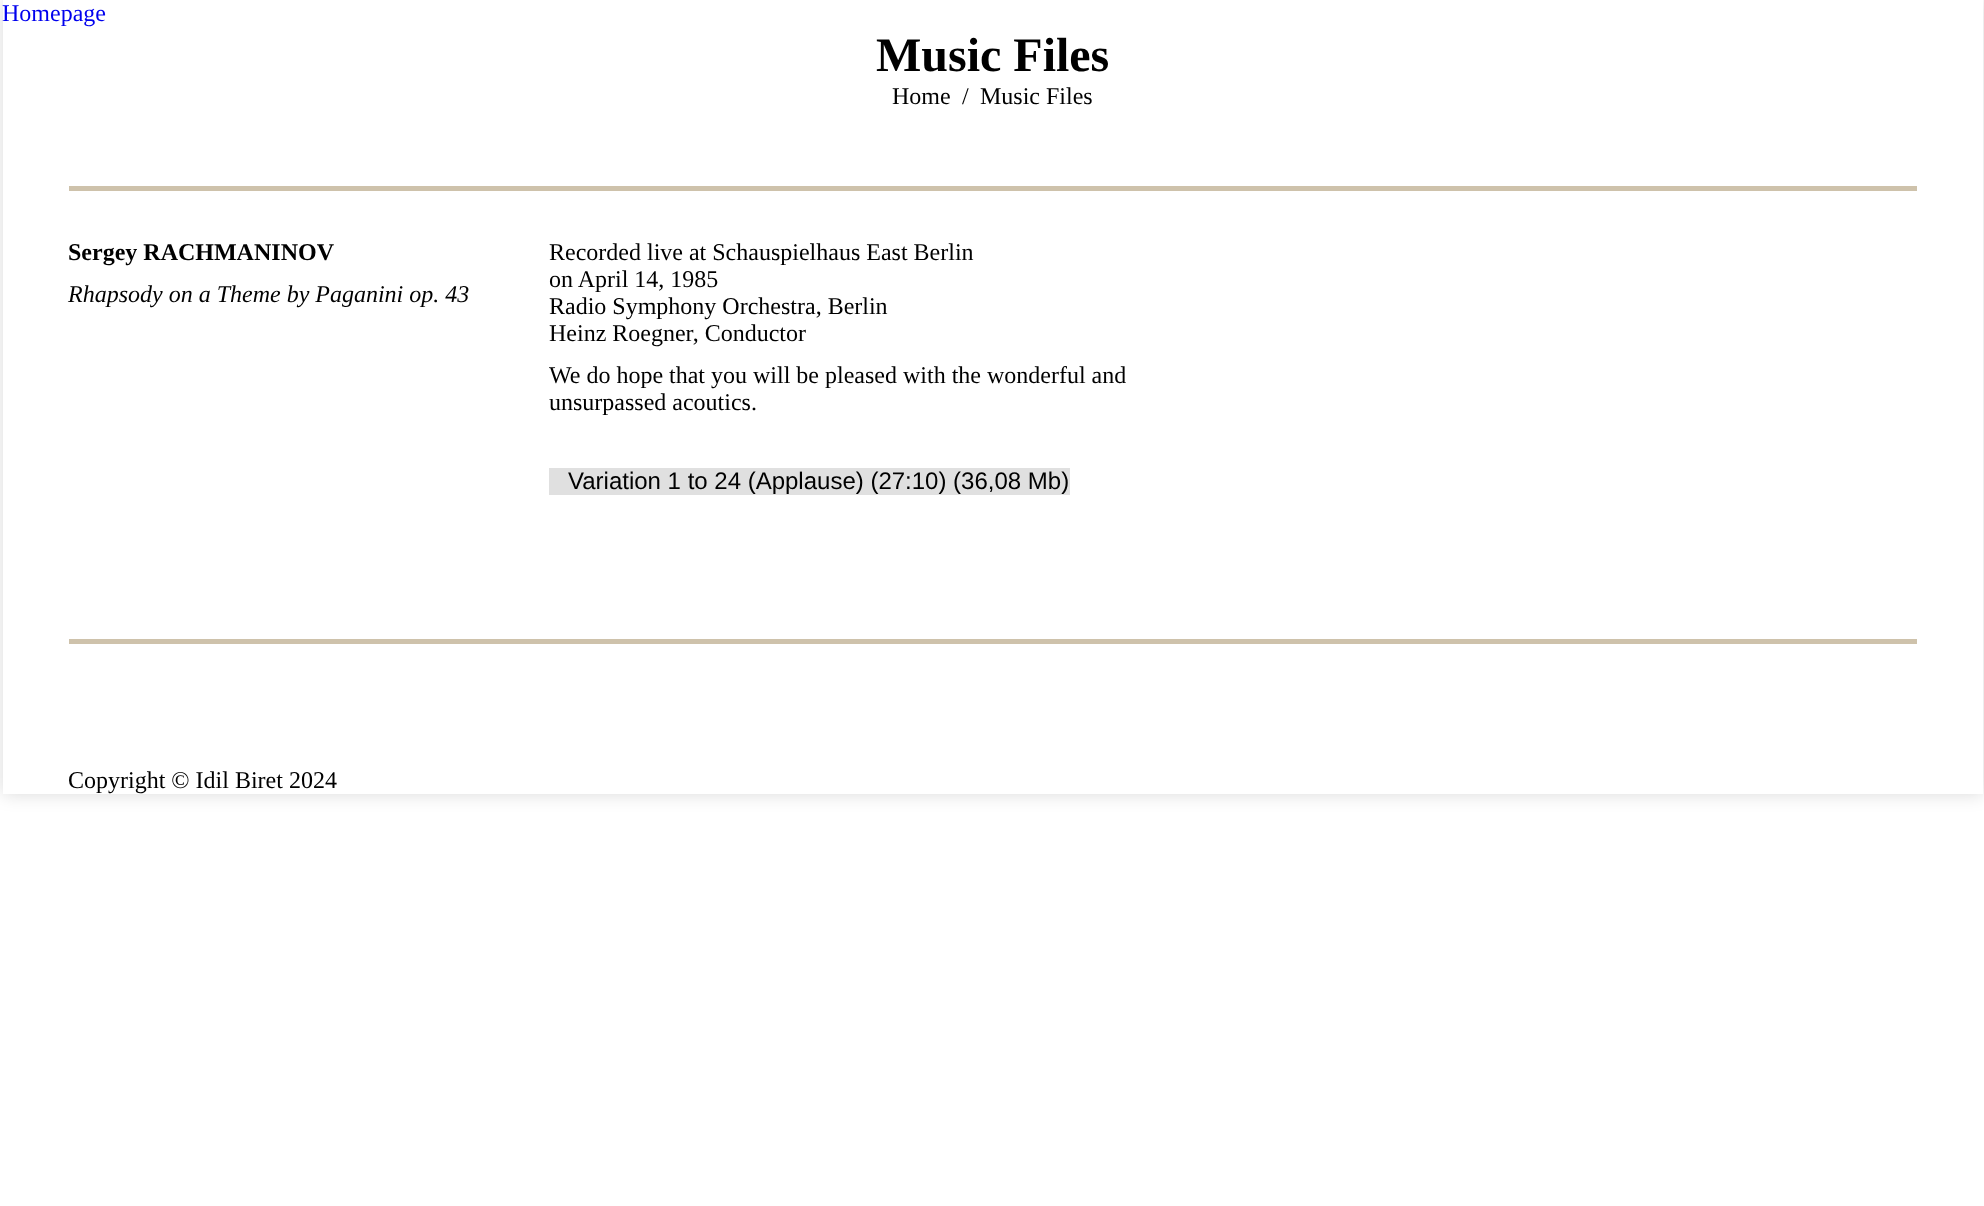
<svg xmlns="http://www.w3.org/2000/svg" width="1984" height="1206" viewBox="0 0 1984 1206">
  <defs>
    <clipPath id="clip1"><path d="M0 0H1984V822H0ZM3 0H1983V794H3Z" clip-rule="evenodd"/></clipPath>
    <filter id="blur1" x="-50%" y="-200%" width="200%" height="500%"><feGaussianBlur stdDeviation="9"/></filter>
  </defs>
  <rect width="100%" height="100%" fill="#ffffff"/>
  <g clip-path="url(#clip1)">
    <rect x="3" y="0" width="1980" height="794" fill="#000000" fill-opacity="0.15" filter="url(#blur1)"/>
  </g>
  <text x="2" y="21" font-family="Liberation Serif" font-size="24" fill="#0000ee">Homepage</text>
  <text x="876" y="71" font-family="Liberation Serif" font-size="48" font-weight="bold" fill="#000000">Music Files</text>
  <text x="892" y="104" font-family="Liberation Serif" font-size="24" fill="#000000">Home</text>
  <text x="962" y="104" font-family="Liberation Serif" font-size="24" fill="#000000">/</text>
  <text x="980" y="104" font-family="Liberation Serif" font-size="24" fill="#000000">Music Files</text>
  <rect x="69" y="186" width="1848" height="5" fill="#cec2ab"/>
  <text x="68" y="260" font-family="Liberation Serif" font-size="24" font-weight="bold" fill="#000000">Sergey RACHMANINOV</text>
  <text x="68" y="302" font-family="Liberation Serif" font-size="24" font-style="italic" fill="#000000">Rhapsody on a Theme by Paganini op. 43</text>
  <text x="549" y="260" font-family="Liberation Serif" font-size="24" fill="#000000">Recorded live at Schauspielhaus East Berlin</text>
  <text x="549" y="287" font-family="Liberation Serif" font-size="24" fill="#000000">on April 14, 1985</text>
  <text x="549" y="314" font-family="Liberation Serif" font-size="24" fill="#000000">Radio Symphony Orchestra, Berlin</text>
  <text x="549" y="341" font-family="Liberation Serif" font-size="24" fill="#000000">Heinz Roegner, Conductor</text>
  <text x="549" y="383" font-family="Liberation Serif" font-size="24" fill="#000000">We do hope that you will be pleased with the wonderful and</text>
  <text x="549" y="410" font-family="Liberation Serif" font-size="24" fill="#000000">unsurpassed acoutics.</text>
  <rect x="549" y="468" width="521" height="27" fill="#e0e0e0"/>
  <text x="568" y="489" font-family="Liberation Sans" font-size="24" fill="#000000">Variation 1 to 24 (Applause) (27:10) (36,08 Mb)</text>
  <rect x="69" y="639" width="1848" height="5" fill="#cec2ab"/>
  <text x="68" y="788" font-family="Liberation Serif" font-size="24" fill="#000000">Copyright © Idil Biret 2024</text>
</svg>
